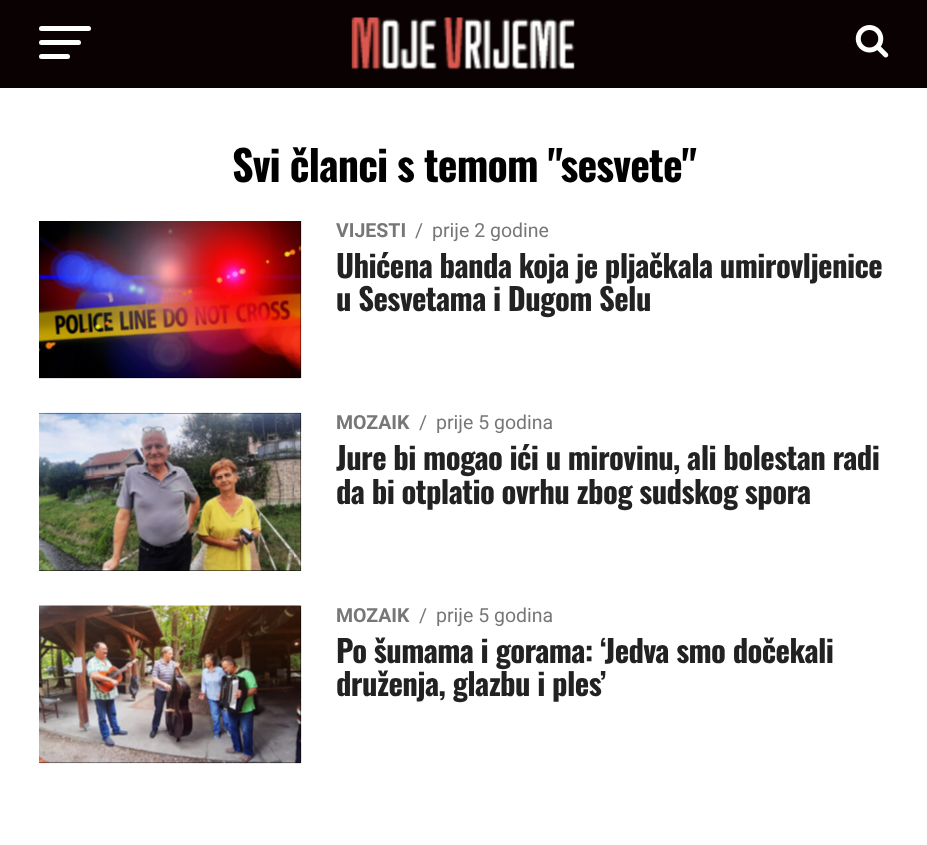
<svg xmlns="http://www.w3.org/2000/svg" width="927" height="845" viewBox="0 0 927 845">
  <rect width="100%" height="100%" fill="#ffffff"/>
  <rect x="0" y="0" width="927" height="88" fill="#0a0202"/>
  <rect x="39" y="26" width="52" height="5" rx="2.5" fill="#ffffff"/>
  <rect x="39" y="40" width="42" height="5" rx="2.5" fill="#ffffff"/>
  <rect x="39" y="54" width="31" height="5" rx="2.5" fill="#ffffff"/>
  <image x="351" y="17" width="224" height="53" href="img1.png"/>
  <image x="855" y="25" width="34" height="33" href="img2.png"/>
  <text x="232" y="182" font-family="Oswald" font-size="42" font-weight="bold" letter-spacing="-0.85" fill="#000000">Svi članci s temom "sesvete"</text>
  <rect x="39" y="221" width="262" height="157" fill="#000000"/>
  <image x="39" y="221" width="263" height="158" href="img3.png"/>
  <text x="336" y="237" font-family="Roboto" font-size="19.5" font-weight="bold" fill="#777777">VIJESTI</text>
  <text x="415" y="237" font-family="Roboto" font-size="19.5" fill="#777777">/</text>
  <text x="432" y="237" font-family="Roboto" font-size="19.5" fill="#777777">prije 2 godine</text>
  <text x="336" y="278" font-family="Oswald" font-size="30.75" font-weight="bold" letter-spacing="-0.6" fill="#222222">Uhićena banda koja je pljačkala umirovljenice</text>
  <text x="336" y="311" font-family="Oswald" font-size="30.75" font-weight="bold" letter-spacing="-0.6" fill="#222222">u Sesvetama i Dugom Selu</text>
  <rect x="39" y="413" width="262" height="158" fill="#000000"/>
  <image x="39" y="412" width="263" height="159" href="img4.png"/>
  <text x="336" y="429" font-family="Roboto" font-size="19.5" font-weight="bold" fill="#777777">MOZAIK</text>
  <text x="419" y="429" font-family="Roboto" font-size="19.5" fill="#777777">/</text>
  <text x="436" y="429" font-family="Roboto" font-size="19.5" fill="#777777">prije 5 godina</text>
  <text x="336" y="470" font-family="Oswald" font-size="30.75" font-weight="bold" letter-spacing="-0.6" fill="#222222">Jure bi mogao ići u mirovinu, ali bolestan radi</text>
  <text x="336" y="504" font-family="Oswald" font-size="30.75" font-weight="bold" letter-spacing="-0.6" fill="#222222">da bi otplatio ovrhu zbog sudskog spora</text>
  <rect x="39" y="606" width="262" height="157" fill="#000000"/>
  <image x="39" y="605" width="263" height="159" href="img5.png"/>
  <text x="336" y="622" font-family="Roboto" font-size="19.5" font-weight="bold" fill="#777777">MOZAIK</text>
  <text x="419" y="622" font-family="Roboto" font-size="19.5" fill="#777777">/</text>
  <text x="436" y="622" font-family="Roboto" font-size="19.5" fill="#777777">prije 5 godina</text>
  <text x="336" y="663" font-family="Oswald" font-size="30.75" font-weight="bold" letter-spacing="-0.6" fill="#222222">Po šumama i gorama: ‘Jedva smo dočekali</text>
  <text x="336" y="696" font-family="Oswald" font-size="30.75" font-weight="bold" letter-spacing="-0.6" fill="#222222">druženja, glazbu i ples’</text>
</svg>
